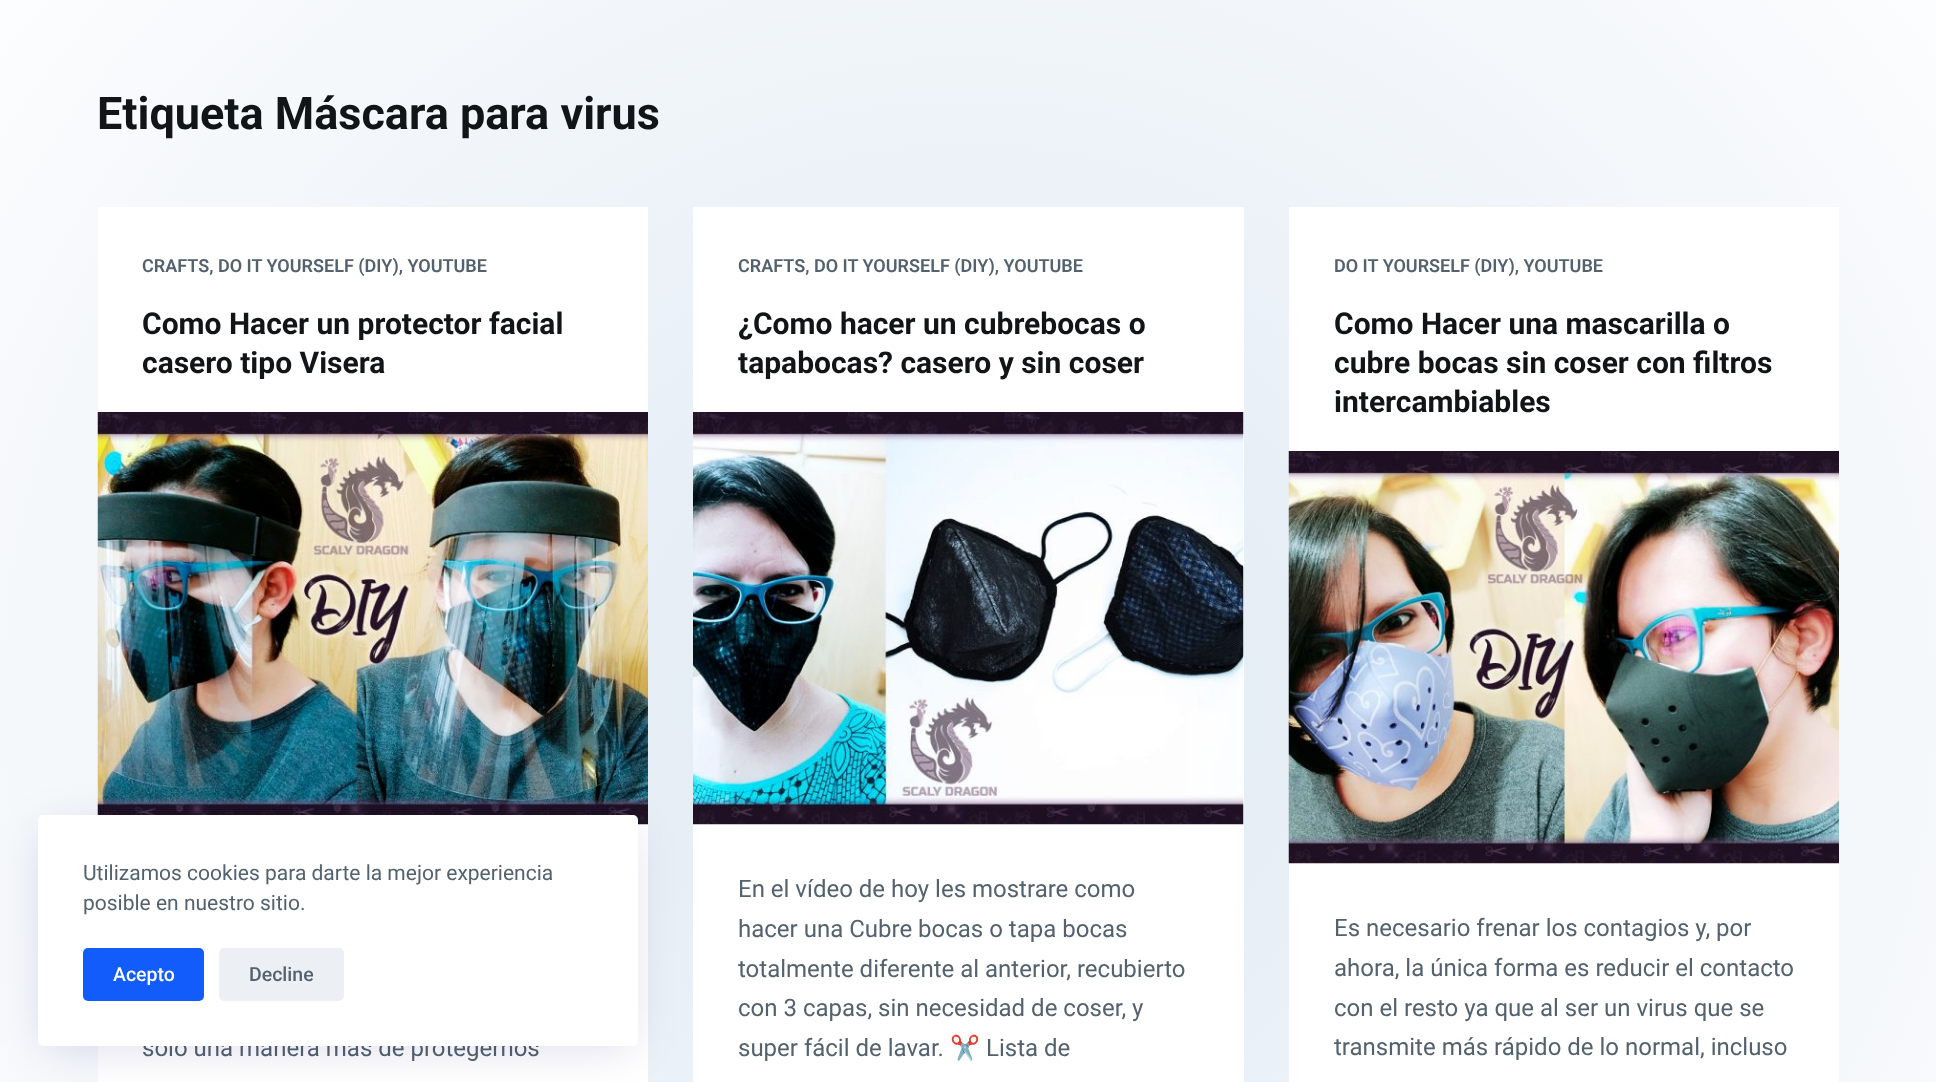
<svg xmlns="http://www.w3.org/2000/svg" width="1936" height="1082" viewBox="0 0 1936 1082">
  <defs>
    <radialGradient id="g1" gradientUnits="userSpaceOnUse" cx="0" cy="0" r="1" gradientTransform="matrix(1369 0 0 1284 968 703)"><stop offset="0" stop-color="#dfe9f3"/><stop offset="1" stop-color="#ffffff"/></radialGradient>
    <filter id="blur1" x="-50%" y="-200%" width="200%" height="500%"><feGaussianBlur stdDeviation="22.5"/></filter>
  </defs>
  <rect width="100%" height="100%" fill="#ffffff"/>
  <rect x="0" y="0" width="1936" height="1082" fill="url(#g1)"/>
  <text x="97" y="129" font-family="Roboto" font-size="45" font-weight="bold" fill="#111518">Etiqueta Máscara para virus</text>
  <rect x="98" y="207" width="550" height="875" fill="#ffffff"/>
  <text x="142" y="272" font-family="Roboto" font-size="18" font-weight="600" fill="#53626e">CRAFTS, DO IT YOURSELF (DIY), YOUTUBE</text>
  <text x="142" y="334" font-family="Roboto" font-size="30" font-weight="bold" fill="#111518">Como Hacer un protector facial</text>
  <text x="142" y="373" font-family="Roboto" font-size="30" font-weight="bold" fill="#111518">casero tipo Visera</text>
  <image x="97" y="412" width="551" height="413" href="img1.png"/>
  <text x="142" y="1056" font-family="Roboto" font-size="24" fill="#53626e">solo una manera más de protegernos</text>
  <rect x="693" y="207" width="551" height="875" fill="#ffffff"/>
  <text x="738" y="272" font-family="Roboto" font-size="18" font-weight="600" fill="#53626e">CRAFTS, DO IT YOURSELF (DIY), YOUTUBE</text>
  <text x="738" y="334" font-family="Roboto" font-size="30" font-weight="bold" fill="#111518">¿Como hacer un cubrebocas o</text>
  <text x="738" y="373" font-family="Roboto" font-size="30" font-weight="bold" fill="#111518">tapabocas? casero y sin coser</text>
  <image x="693" y="412" width="551" height="413" href="img2.png"/>
  <text x="738" y="897" font-family="Roboto" font-size="24" fill="#53626e">En el vídeo de hoy les mostrare como</text>
  <text x="738" y="937" font-family="Roboto" font-size="24" fill="#53626e">hacer una Cubre bocas o tapa bocas</text>
  <text x="738" y="977" font-family="Roboto" font-size="24" fill="#53626e">totalmente diferente al anterior, recubierto</text>
  <text x="738" y="1016" font-family="Roboto" font-size="24" fill="#53626e">con 3 capas, sin necesidad de coser, y</text>
  <text x="738" y="1056" font-family="Roboto" font-size="24" fill="#53626e">super fácil de lavar.</text>
  <text x="950" y="1056" font-family="Noto Color Emoji" font-size="24" fill="#53626e">✂️</text>
  <text x="986" y="1056" font-family="Roboto" font-size="24" fill="#53626e">Lista de</text>
  <rect x="1289" y="207" width="550" height="875" fill="#ffffff"/>
  <text x="1334" y="272" font-family="Roboto" font-size="18" font-weight="600" fill="#53626e">DO IT YOURSELF (DIY), YOUTUBE</text>
  <text x="1334" y="334" font-family="Roboto" font-size="30" font-weight="bold" fill="#111518">Como Hacer una mascarilla o</text>
  <text x="1334" y="373" font-family="Roboto" font-size="30" font-weight="bold" fill="#111518">cubre bocas sin coser con filtros</text>
  <text x="1334" y="412" font-family="Roboto" font-size="30" font-weight="bold" fill="#111518">intercambiables</text>
  <image x="1288" y="451" width="551" height="413" href="img3.png"/>
  <text x="1334" y="936" font-family="Roboto" font-size="24" fill="#53626e">Es necesario frenar los contagios y, por</text>
  <text x="1334" y="976" font-family="Roboto" font-size="24" fill="#53626e">ahora, la única forma es reducir el contacto</text>
  <text x="1334" y="1016" font-family="Roboto" font-size="24" fill="#53626e">con el resto ya que al ser un virus que se</text>
  <text x="1334" y="1055" font-family="Roboto" font-size="24" fill="#53626e">transmite más rápido de lo normal, incluso</text>
  <rect x="45" y="830" width="585" height="216" fill="#223865" fill-opacity="0.15" filter="url(#blur1)"/>
  <rect x="38" y="815" width="600" height="231" rx="5" fill="#ffffff"/>
  <text x="83" y="880" font-family="Roboto" font-size="21" fill="#53626e">Utilizamos cookies para darte la mejor experiencia</text>
  <text x="83" y="910" font-family="Roboto" font-size="21" fill="#53626e">posible en nuestro sitio.</text>
  <rect x="83" y="948" width="121" height="53" rx="5" fill="#115cfa"/>
  <text x="113" y="981" font-family="Roboto" font-size="19.5" font-weight="500" fill="#ffffff">Acepto</text>
  <rect x="219" y="948" width="125" height="53" rx="5" fill="#eceff3"/>
  <text x="249" y="981" font-family="Roboto" font-size="19.5" font-weight="500" fill="#53626e">Decline</text>
</svg>
